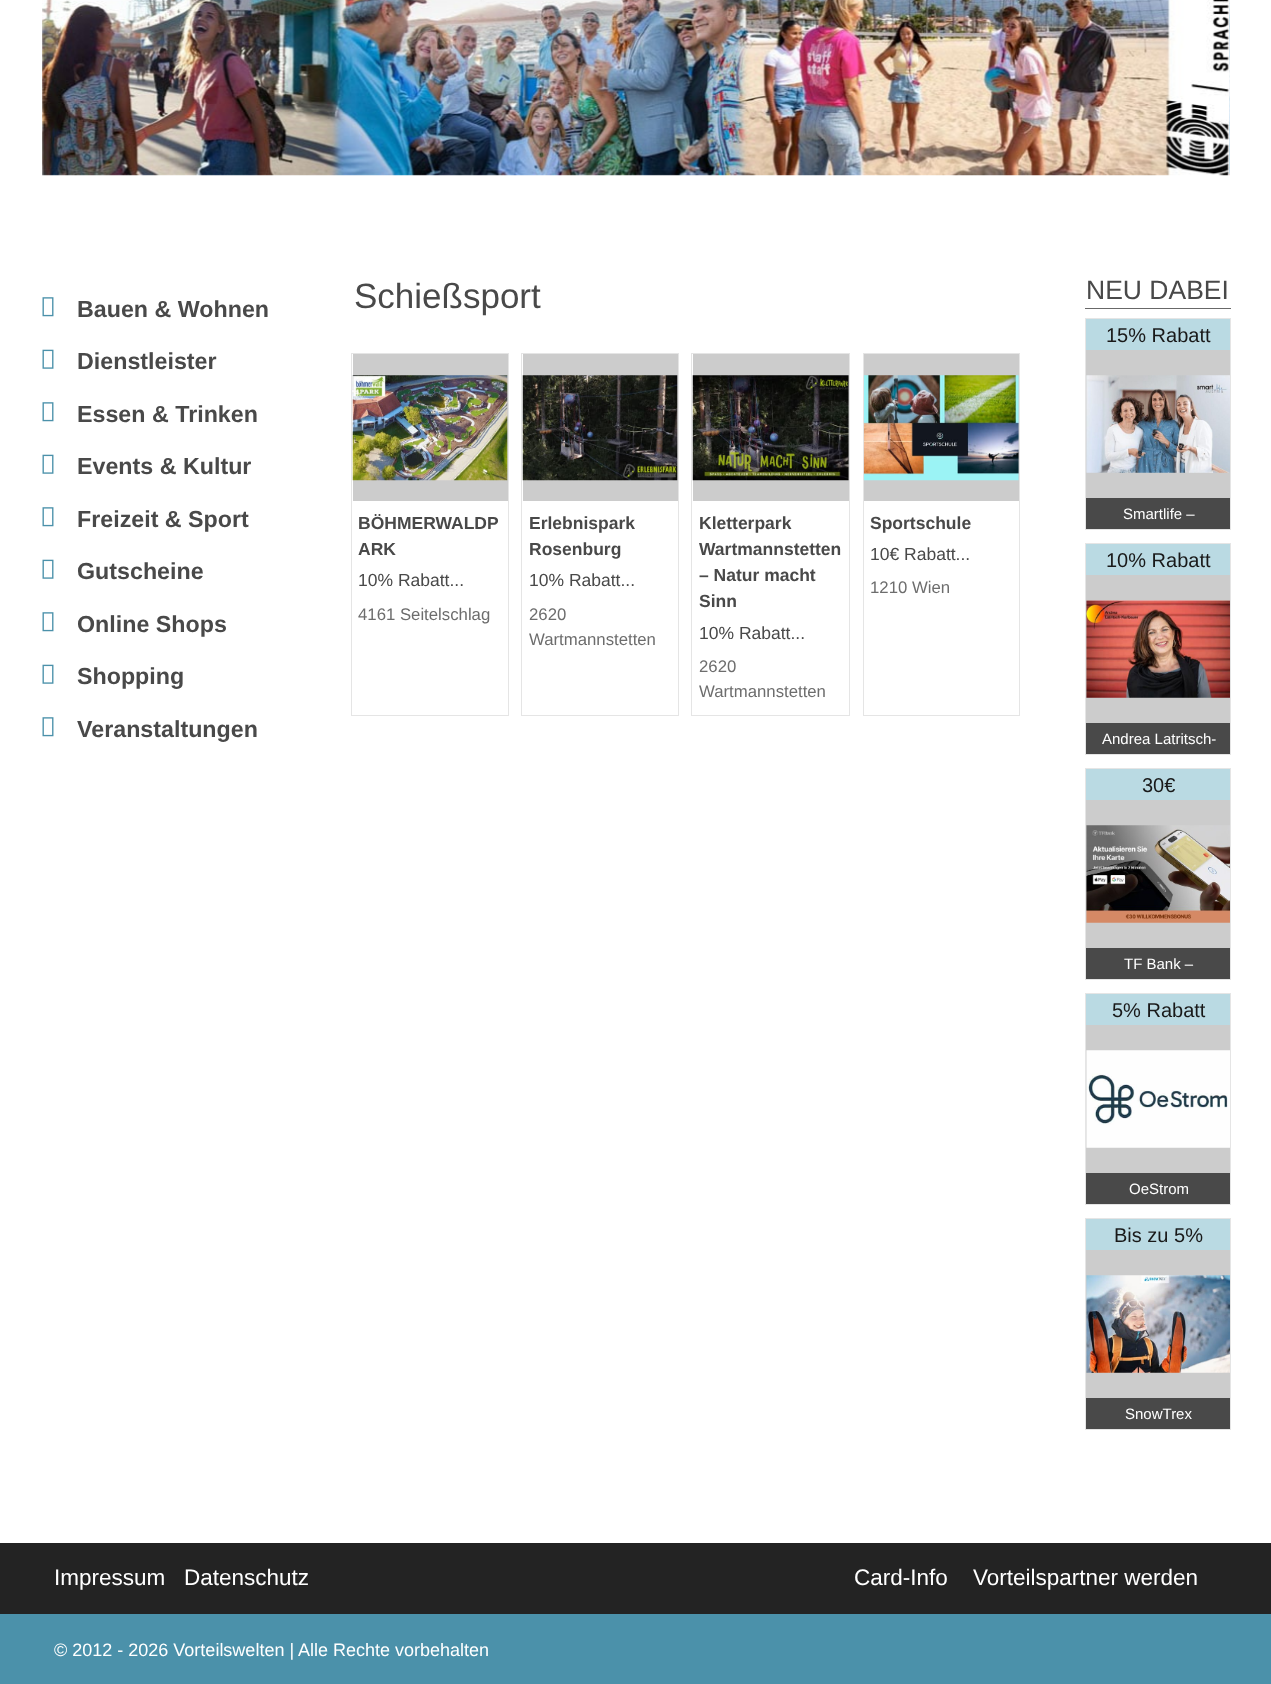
<svg xmlns="http://www.w3.org/2000/svg" width="1271" height="1684" viewBox="0 0 1271 1684">
  <rect width="100%" height="100%" fill="#ffffff"/>
  <image x="42" y="0" width="1188" height="176" href="img1.png"/>
  <image x="1229" y="0" width="1" height="176" href="img2.png"/>
  <image x="42" y="297" width="12" height="20" href="img3.png"/>
  <text x="77" y="317" font-family="Liberation Sans" font-size="23.25" font-weight="bold" fill="#494949">Bauen &amp; Wohnen</text>
  <image x="42" y="349" width="12" height="20" href="img4.png"/>
  <text x="77" y="369" font-family="Liberation Sans" font-size="23.25" font-weight="bold" fill="#494949">Dienstleister</text>
  <image x="42" y="402" width="12" height="20" href="img3.png"/>
  <text x="77" y="422" font-family="Liberation Sans" font-size="23.25" font-weight="bold" fill="#494949">Essen &amp; Trinken</text>
  <image x="42" y="454" width="12" height="20" href="img4.png"/>
  <text x="77" y="474" font-family="Liberation Sans" font-size="23.25" font-weight="bold" fill="#494949">Events &amp; Kultur</text>
  <image x="42" y="507" width="12" height="20" href="img3.png"/>
  <text x="77" y="527" font-family="Liberation Sans" font-size="23.25" font-weight="bold" fill="#494949">Freizeit &amp; Sport</text>
  <image x="42" y="559" width="12" height="20" href="img4.png"/>
  <text x="77" y="579" font-family="Liberation Sans" font-size="23.25" font-weight="bold" fill="#494949">Gutscheine</text>
  <image x="42" y="612" width="12" height="20" href="img3.png"/>
  <text x="77" y="632" font-family="Liberation Sans" font-size="23.25" font-weight="bold" fill="#494949">Online Shops</text>
  <image x="42" y="664" width="12" height="20" href="img4.png"/>
  <text x="77" y="684" font-family="Liberation Sans" font-size="23.25" font-weight="bold" fill="#494949">Shopping</text>
  <image x="42" y="717" width="12" height="20" href="img3.png"/>
  <text x="77" y="737" font-family="Liberation Sans" font-size="23.25" font-weight="bold" fill="#494949">Veranstaltungen</text>
  <text x="354" y="308" font-family="Liberation Sans" font-size="35" fill="#494949">Schießsport</text>
  <rect x="351.5" y="353.5" width="157" height="362" fill="none" stroke="#e5e5e5"/>
  <rect x="353" y="354" width="155" height="147" fill="#cccccc"/>
  <image x="352" y="375" width="156" height="106" href="img5.png"/>
  <text x="358" y="529" font-family="Liberation Sans" font-size="17.5" font-weight="bold" fill="#494949">BÖHMERWALDP</text>
  <text x="358" y="555" font-family="Liberation Sans" font-size="17.5" font-weight="bold" fill="#494949">ARK</text>
  <text x="358" y="586" font-family="Liberation Sans" font-size="17.5" fill="#494949">10% Rabatt...</text>
  <text x="358" y="620" font-family="Liberation Sans" font-size="16.75" fill="#6d6d6d">4161 Seitelschlag</text>
  <rect x="521.5" y="353.5" width="157" height="362" fill="none" stroke="#e5e5e5"/>
  <rect x="523" y="354" width="155" height="147" fill="#cccccc"/>
  <image x="522" y="375" width="156" height="106" href="img6.png"/>
  <text x="529" y="529" font-family="Liberation Sans" font-size="17.5" font-weight="bold" fill="#494949">Erlebnispark</text>
  <text x="529" y="555" font-family="Liberation Sans" font-size="17.5" font-weight="bold" fill="#494949">Rosenburg</text>
  <text x="529" y="586" font-family="Liberation Sans" font-size="17.5" fill="#494949">10% Rabatt...</text>
  <text x="529" y="620" font-family="Liberation Sans" font-size="16.75" fill="#6d6d6d">2620</text>
  <text x="529" y="645" font-family="Liberation Sans" font-size="16.75" fill="#6d6d6d">Wartmannstetten</text>
  <rect x="691.5" y="353.5" width="158" height="362" fill="none" stroke="#e5e5e5"/>
  <rect x="693" y="354" width="156" height="147" fill="#cccccc"/>
  <image x="692" y="375" width="157" height="106" href="img7.png"/>
  <text x="699" y="529" font-family="Liberation Sans" font-size="17.5" font-weight="bold" fill="#494949">Kletterpark</text>
  <text x="699" y="555" font-family="Liberation Sans" font-size="17.5" font-weight="bold" fill="#494949">Wartmannstetten</text>
  <text x="699" y="581" font-family="Liberation Sans" font-size="17.5" font-weight="bold" fill="#494949">– Natur macht</text>
  <text x="699" y="607" font-family="Liberation Sans" font-size="17.5" font-weight="bold" fill="#494949">Sinn</text>
  <text x="699" y="639" font-family="Liberation Sans" font-size="17.5" fill="#494949">10% Rabatt...</text>
  <text x="699" y="672" font-family="Liberation Sans" font-size="16.75" fill="#6d6d6d">2620</text>
  <text x="699" y="697" font-family="Liberation Sans" font-size="16.75" fill="#6d6d6d">Wartmannstetten</text>
  <rect x="863.5" y="353.5" width="156" height="362" fill="none" stroke="#e5e5e5"/>
  <rect x="864" y="354" width="155" height="147" fill="#cccccc"/>
  <image x="863" y="375" width="156" height="106" href="img8.png"/>
  <text x="870" y="529" font-family="Liberation Sans" font-size="17.5" font-weight="bold" fill="#494949">Sportschule</text>
  <text x="870" y="560" font-family="Liberation Sans" font-size="17.5" fill="#494949">10€ Rabatt...</text>
  <text x="870" y="593" font-family="Liberation Sans" font-size="16.75" fill="#6d6d6d">1210 Wien</text>
  <rect x="1085" y="308" width="146" height="1" fill="#686868"/>
  <text x="1086" y="299" font-family="Liberation Sans" font-size="26.5" fill="#494949">NEU DABEI</text>
  <rect x="1085.5" y="318.5" width="145" height="211" fill="none" stroke="#e5e5e5"/>
  <rect x="1086" y="319" width="144" height="31" fill="#badae3"/>
  <text x="1106" y="342" font-family="Liberation Sans" font-size="20" fill="#191919">15% Rabatt</text>
  <rect x="1086" y="350" width="144" height="148" fill="#cccccc"/>
  <image x="1086" y="375" width="144" height="98" href="img9.png"/>
  <rect x="1086" y="498" width="144" height="31" fill="#494949"/>
  <text x="1123" y="519" font-family="Liberation Sans" font-size="15" fill="#ffffff">Smartlife –</text>
  <rect x="1085.5" y="543.5" width="145" height="211" fill="none" stroke="#e5e5e5"/>
  <rect x="1086" y="544" width="144" height="31" fill="#badae3"/>
  <text x="1106" y="567" font-family="Liberation Sans" font-size="20" fill="#191919">10% Rabatt</text>
  <rect x="1086" y="575" width="144" height="148" fill="#cccccc"/>
  <image x="1086" y="600" width="144" height="98" href="img10.png"/>
  <rect x="1086" y="723" width="144" height="31" fill="#494949"/>
  <text x="1102" y="744" font-family="Liberation Sans" font-size="15" fill="#ffffff">Andrea Latritsch-</text>
  <rect x="1085.5" y="768.5" width="145" height="211" fill="none" stroke="#e5e5e5"/>
  <rect x="1086" y="769" width="144" height="31" fill="#badae3"/>
  <text x="1142" y="792" font-family="Liberation Sans" font-size="20" fill="#191919">30€</text>
  <rect x="1086" y="800" width="144" height="148" fill="#cccccc"/>
  <image x="1086" y="825" width="144" height="98" href="img11.png"/>
  <rect x="1086" y="948" width="144" height="31" fill="#494949"/>
  <text x="1124" y="969" font-family="Liberation Sans" font-size="15" fill="#ffffff">TF Bank –</text>
  <rect x="1085.5" y="993.5" width="145" height="211" fill="none" stroke="#e5e5e5"/>
  <rect x="1086" y="994" width="144" height="31" fill="#badae3"/>
  <text x="1112" y="1017" font-family="Liberation Sans" font-size="20" fill="#191919">5% Rabatt</text>
  <rect x="1086" y="1025" width="144" height="148" fill="#cccccc"/>
  <image x="1086" y="1050" width="144" height="98" href="img12.png"/>
  <rect x="1086" y="1173" width="144" height="31" fill="#494949"/>
  <text x="1129" y="1194" font-family="Liberation Sans" font-size="15" fill="#ffffff">OeStrom</text>
  <rect x="1085.5" y="1218.5" width="145" height="211" fill="none" stroke="#e5e5e5"/>
  <rect x="1086" y="1219" width="144" height="31" fill="#badae3"/>
  <text x="1114" y="1242" font-family="Liberation Sans" font-size="20" fill="#191919">Bis zu 5%</text>
  <rect x="1086" y="1250" width="144" height="148" fill="#cccccc"/>
  <image x="1086" y="1275" width="144" height="98" href="img13.png"/>
  <rect x="1086" y="1398" width="144" height="31" fill="#494949"/>
  <text x="1125" y="1419" font-family="Liberation Sans" font-size="15" fill="#ffffff">SnowTrex</text>
  <rect x="0" y="1543" width="1271" height="71" fill="#232323"/>
  <text x="54" y="1585" font-family="Liberation Sans" font-size="22.5" fill="#ffffff">Impressum</text>
  <text x="184" y="1585" font-family="Liberation Sans" font-size="22.5" fill="#ffffff">Datenschutz</text>
  <text x="854" y="1585" font-family="Liberation Sans" font-size="22.5" fill="#ffffff">Card-Info</text>
  <text x="973" y="1585" font-family="Liberation Sans" font-size="22.5" fill="#ffffff">Vorteilspartner werden</text>
  <rect x="0" y="1614" width="1271" height="70" fill="#4b91aa"/>
  <text x="54" y="1656" font-family="Liberation Sans" font-size="18" fill="#ffffff">© 2012 - 2026 Vorteilswelten |</text>
  <text x="298" y="1656" font-family="Liberation Sans" font-size="18" fill="#ffffff">Alle Rechte vorbehalten</text>
</svg>
